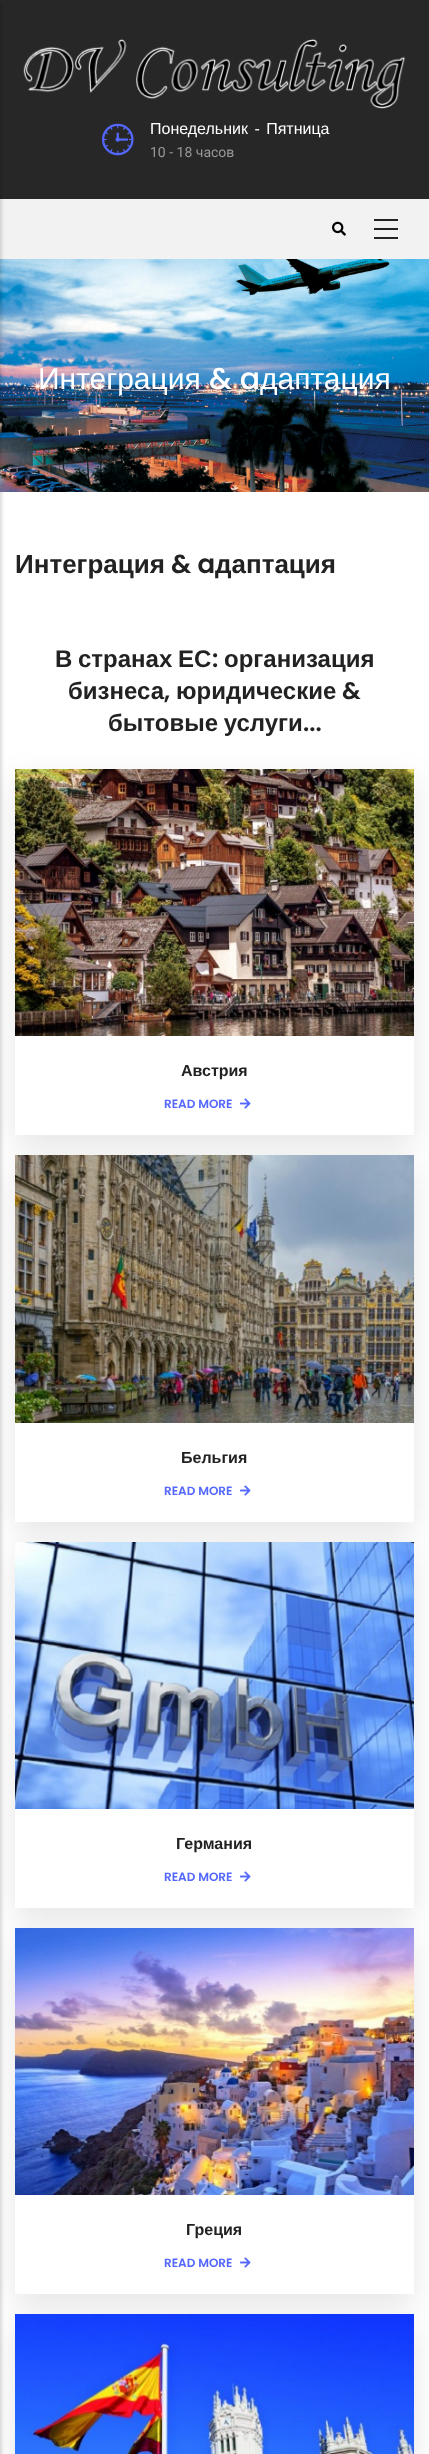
<svg xmlns="http://www.w3.org/2000/svg" width="429" height="2454" viewBox="0 0 429 2454">
  <defs>
    <filter id="blur1" x="-50%" y="-200%" width="200%" height="500%"><feGaussianBlur stdDeviation="2"/></filter>
    <filter id="blur2" x="-50%" y="-200%" width="200%" height="500%"><feGaussianBlur stdDeviation="15"/></filter>
  </defs>
  <rect width="100%" height="100%" fill="#ffffff"/>
  <rect x="0" y="199" width="429" height="60" fill="#f2f2f2"/>
  <rect x="0" y="0" width="429" height="199" fill="#272727"/>
  <image x="0" y="259" width="429" height="233" href="img4.png"/>
  <rect x="-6" y="3" width="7" height="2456" fill="#000000" fill-opacity="0.2" filter="url(#blur1)"/>
  <image x="332" y="221" width="14" height="15" href="img1.png"/>
  <rect x="374" y="219" width="24" height="2" fill="#222222"/>
  <rect x="374" y="228" width="24" height="2" fill="#222222"/>
  <rect x="374" y="237" width="24" height="2" fill="#222222"/>
  <image x="23" y="39" width="383" height="70" href="img2.png"/>
  <image x="102" y="123" width="32" height="33" href="img3.png"/>
  <text x="150" y="134" word-spacing="2" font-family="Liberation Sans" font-size="16" fill="#ffffff">Понедельник - Пятница</text>
  <text x="150" y="157" font-family="Roboto" font-size="14" fill="#999999">10 - 18 часов</text>
  <text x="38" y="389" font-family="Liberation Sans" font-size="30" fill="#ffffff">Интеграция</text>
  <text x="209" y="389" font-family="Poppins" font-size="30" font-weight="500" fill="#ffffff">&amp; a</text>
  <text x="260" y="389" font-family="Liberation Sans" font-size="30" fill="#ffffff">даптация</text>
  <text x="15" y="573" font-family="Liberation Sans" font-size="26" font-weight="bold" fill="#222222">Интеграция</text>
  <text x="171" y="573" font-family="Poppins" font-size="26" font-weight="600" fill="#222222">&amp; a</text>
  <text x="215" y="573" font-family="Liberation Sans" font-size="26" font-weight="bold" fill="#222222">даптация</text>
  <text x="55" y="667" word-spacing="-1" font-family="Liberation Sans" font-size="24" font-weight="bold" fill="#222222">В странах ЕС</text>
  <text x="212" y="667" font-family="Poppins" font-size="24" font-weight="600" fill="#222222">:</text>
  <text x="224" y="667" font-family="Liberation Sans" font-size="24" font-weight="bold" fill="#222222">организация</text>
  <text x="68" y="699" font-family="Liberation Sans" font-size="24" font-weight="bold" fill="#222222">бизнеса</text>
  <text x="164" y="699" font-family="Poppins" font-size="24" font-weight="600" fill="#222222">,</text>
  <text x="176" y="699" font-family="Liberation Sans" font-size="24" font-weight="bold" fill="#222222">юридические</text>
  <text x="342" y="699" font-family="Poppins" font-size="24" font-weight="600" fill="#222222">&amp;</text>
  <text x="108" y="731" word-spacing="-1" font-family="Liberation Sans" font-size="24" font-weight="bold" fill="#222222">бытовые услуги</text>
  <text x="303" y="731" font-family="Poppins" font-size="24" font-weight="600" fill="#222222">...</text>
  <rect x="15" y="779" width="399" height="366" rx="6" fill="#000000" fill-opacity="0.1" filter="url(#blur2)"/>
  <image x="15" y="769" width="399" height="267" href="img5.png"/>
  <rect x="15" y="1036" width="399" height="99" fill="#ffffff"/>
  <text x="181" y="1076" font-family="Liberation Sans" font-size="16" font-weight="bold" fill="#222222">Австрия</text>
  <text x="164" y="1108" font-family="Poppins" font-size="12" font-weight="600" fill="#5468ff">READ MORE</text>
  <image x="240" y="1098" width="11" height="11" href="img6.png"/>
  <rect x="15" y="1165" width="399" height="367" rx="6" fill="#000000" fill-opacity="0.1" filter="url(#blur2)"/>
  <image x="15" y="1155" width="399" height="268" href="img7.png"/>
  <rect x="15" y="1423" width="399" height="99" fill="#ffffff"/>
  <text x="181" y="1463" font-family="Liberation Sans" font-size="16" font-weight="bold" fill="#222222">Бельгия</text>
  <text x="164" y="1495" font-family="Poppins" font-size="12" font-weight="600" fill="#5468ff">READ MORE</text>
  <image x="240" y="1485" width="11" height="11" href="img6.png"/>
  <rect x="15" y="1552" width="399" height="366" rx="6" fill="#000000" fill-opacity="0.1" filter="url(#blur2)"/>
  <image x="15" y="1542" width="399" height="267" href="img8.png"/>
  <rect x="15" y="1809" width="399" height="99" fill="#ffffff"/>
  <text x="176" y="1849" font-family="Liberation Sans" font-size="16" font-weight="bold" fill="#222222">Германия</text>
  <text x="164" y="1881" font-family="Poppins" font-size="12" font-weight="600" fill="#5468ff">READ MORE</text>
  <image x="240" y="1871" width="11" height="11" href="img6.png"/>
  <rect x="15" y="1938" width="399" height="366" rx="6" fill="#000000" fill-opacity="0.1" filter="url(#blur2)"/>
  <image x="15" y="1928" width="399" height="267" href="img9.png"/>
  <rect x="15" y="2195" width="399" height="99" fill="#ffffff"/>
  <text x="186" y="2235" font-family="Liberation Sans" font-size="16" font-weight="bold" fill="#222222">Греция</text>
  <text x="164" y="2267" font-family="Poppins" font-size="12" font-weight="600" fill="#5468ff">READ MORE</text>
  <image x="240" y="2257" width="11" height="11" href="img6.png"/>
  <rect x="15" y="2324" width="399" height="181" rx="6" fill="#000000" fill-opacity="0.1" filter="url(#blur2)"/>
  <image x="15" y="2314" width="399" height="140" href="img10.png"/>
</svg>
